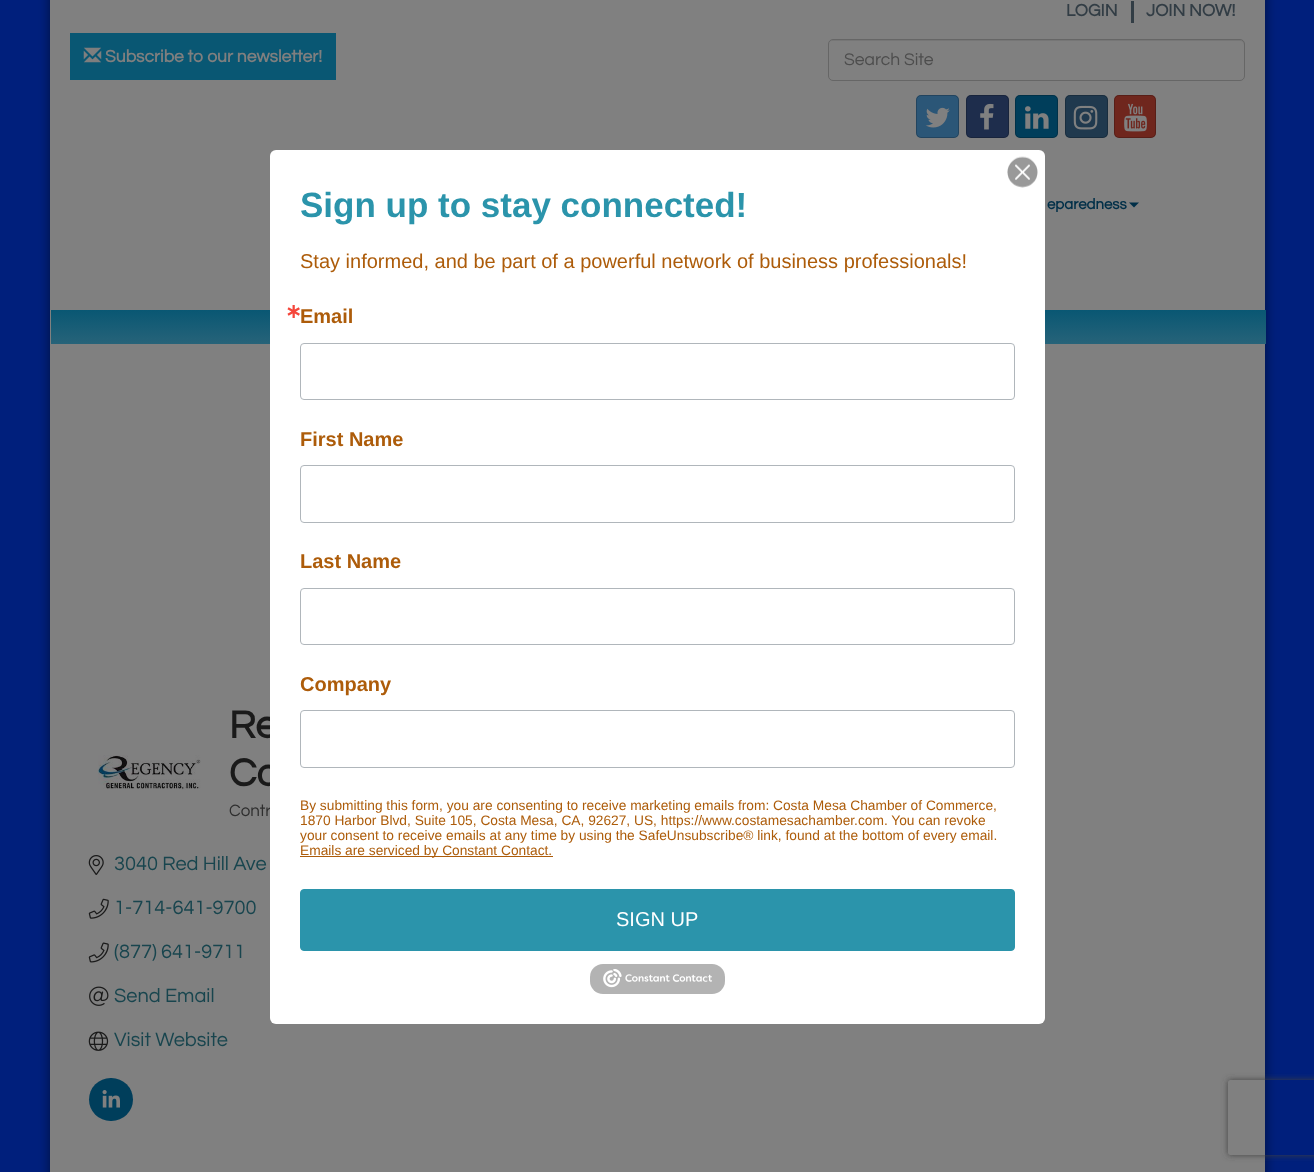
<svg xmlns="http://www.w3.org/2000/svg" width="1314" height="1172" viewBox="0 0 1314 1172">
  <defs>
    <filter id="blur1" x="-50%" y="-200%" width="200%" height="500%"><feGaussianBlur stdDeviation="6"/></filter>
    <linearGradient id="g1" gradientUnits="userSpaceOnUse" x1="659" y1="310" x2="659" y2="344"><stop offset="0" stop-color="#095773"/><stop offset="1" stop-color="#276379"/></linearGradient>
    <clipPath id="clip1"><path d="M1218 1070H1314V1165H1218ZM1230.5 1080H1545.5C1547 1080 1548 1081 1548 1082.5V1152.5C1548 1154 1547 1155 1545.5 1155H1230.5C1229 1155 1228 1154 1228 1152.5V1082.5C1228 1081 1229 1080 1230.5 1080Z" clip-rule="evenodd"/></clipPath>
    <filter id="blur2" x="-50%" y="-200%" width="200%" height="500%"><feGaussianBlur stdDeviation="3"/></filter>
  </defs>
  <rect width="100%" height="100%" fill="#001f7c"/>
  <rect x="50" y="-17" width="1215" height="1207" fill="#000000" fill-opacity="0.5" filter="url(#blur1)"/>
  <rect x="50" y="0" width="1215" height="1172" fill="#808080"/>
  <rect x="70" y="33" width="266" height="47" fill="#095773"/>
  <image x="83" y="47" width="19" height="16" href="img1.png"/>
  <text x="105" y="62" font-family="Questrial" font-size="17.5" font-weight="bold" fill="#7f7f7f">Subscribe to our newsletter!</text>
  <text x="1066" y="16" font-family="Questrial" font-size="17.5" font-weight="bold" fill="#323d45">LOGIN</text>
  <rect x="1131" y="1" width="3" height="22" fill="#323d45"/>
  <text x="1146" y="16" font-family="Questrial" font-size="17.5" font-weight="bold" fill="#323d45">JOIN NOW!</text>
  <path d="M832 41H1240C1242 41 1244 43 1244 45V44C1244 42 1242 40 1240 40H833C831 40 829 42 829 44V45C829 43 830 41 832 41Z" fill="#767676"/>
  <rect x="828.5" y="39.5" width="416" height="41" rx="4.5" fill="none" stroke="#666666"/>
  <text x="844" y="65" font-family="Questrial" font-size="17.5" fill="#4d4d4d">Search Site</text>
  <rect x="916" y="95" width="43" height="43" rx="5" fill="#2b5677"/>
  <rect x="916.5" y="95.5" width="42" height="42" rx="4.5" fill="none" stroke="#000000" stroke-opacity="0.2"/>
  <image x="925" y="107" width="25" height="21" href="img2.png"/>
  <rect x="966" y="95" width="43" height="43" rx="5" fill="#1e2d4c"/>
  <rect x="966.5" y="95.5" width="42" height="42" rx="4.5" fill="none" stroke="#000000" stroke-opacity="0.2"/>
  <image x="980" y="103" width="14" height="27" href="img3.png"/>
  <rect x="1015" y="95" width="43" height="43" rx="5" fill="#003e5b"/>
  <rect x="1015.5" y="95.5" width="42" height="42" rx="4.5" fill="none" stroke="#000000" stroke-opacity="0.2"/>
  <image x="1025" y="106" width="24" height="23" href="img4.png"/>
  <rect x="1065" y="95" width="43" height="43" rx="5" fill="#20394e"/>
  <rect x="1065.5" y="95.5" width="42" height="42" rx="4.5" fill="none" stroke="#000000" stroke-opacity="0.2"/>
  <image x="1073" y="105" width="25" height="25" href="img5.png"/>
  <rect x="1114" y="95" width="42" height="43" rx="5" fill="#6f261d"/>
  <rect x="1114.5" y="95.5" width="41" height="42" rx="4.5" fill="none" stroke="#000000" stroke-opacity="0.2"/>
  <image x="1124" y="103" width="23" height="29" href="img6.png"/>
  <text x="1047" y="209" font-family="Questrial" font-size="15" font-weight="bold" fill="#002f48">eparedness</text>
  <path d="M1129 202.5H1139L1134 207.5Z" fill="#002f48"/>
  <rect x="51" y="310" width="1215" height="34" fill="url(#g1)"/>
  <image x="98" y="755" width="103" height="35" href="img7.png"/>
  <text x="229" y="738" font-family="Questrial" font-size="40" font-weight="bold" fill="#1a1a1a">Re</text>
  <text x="229" y="786" font-family="Questrial" font-size="40" font-weight="bold" fill="#1a1a1a">Co</text>
  <text x="229" y="816" font-family="Questrial" font-size="17" fill="#2e2e2e">Contr</text>
  <image x="88" y="855" width="16" height="20" href="img8.png"/>
  <text x="114" y="870" font-family="Questrial" font-size="20" fill="#18454e">3040 Red Hill Ave</text>
  <image x="88" y="898" width="21" height="21" href="img9.png"/>
  <text x="114" y="914" font-family="Questrial" font-size="20" fill="#18454e">1-714-641-9700</text>
  <image x="88" y="942" width="21" height="21" href="img10.png"/>
  <text x="114" y="958" font-family="Questrial" font-size="20" fill="#18454e">(877) 641-9711</text>
  <image x="89" y="986" width="20" height="20" href="img11.png"/>
  <text x="114" y="1002" font-family="Questrial" font-size="20" fill="#18454e">Send Email</text>
  <image x="88" y="1031" width="21" height="20" href="img12.png"/>
  <text x="114" y="1046" font-family="Questrial" font-size="20" fill="#18454e">Visit Website</text>
  <rect x="89" y="1078" width="44" height="43" rx="21.5" fill="#003e5b"/>
  <image x="102" y="1090" width="18" height="18" href="img13.png"/>
  <rect x="270" y="150" width="775" height="874" rx="6" fill="#ffffff"/>
  <image x="1007" y="156" width="31" height="32" href="img14.png"/>
  <text x="300" y="217" font-family="Liberation Sans" font-size="35" font-weight="bold" fill="#2b94ab">Sign up to stay connected!</text>
  <text x="300" y="268" font-family="Liberation Sans" font-size="20" fill="#ad5c0a">Stay informed, and be part of a powerful network of business professionals!</text>
  <text x="285" y="318" font-family="DejaVu Sans" font-size="20" font-weight="bold" fill="#f5463b">∗</text>
  <text x="300" y="323" font-family="Liberation Sans" font-size="20" font-weight="bold" fill="#ad5c0a">Email</text>
  <rect x="300.5" y="343.5" width="714" height="56" rx="3.5" fill="none" stroke="#b0b6bb"/>
  <text x="300" y="446" font-family="Liberation Sans" font-size="20" font-weight="bold" fill="#ad5c0a">First Name</text>
  <rect x="300.5" y="465.5" width="714" height="57" rx="3.5" fill="none" stroke="#b0b6bb"/>
  <text x="300" y="568" font-family="Liberation Sans" font-size="20" font-weight="bold" fill="#ad5c0a">Last Name</text>
  <rect x="300.5" y="588.5" width="714" height="56" rx="3.5" fill="none" stroke="#b0b6bb"/>
  <text x="300" y="691" font-family="Liberation Sans" font-size="20" font-weight="bold" fill="#ad5c0a">Company</text>
  <rect x="300.5" y="710.5" width="714" height="57" rx="3.5" fill="none" stroke="#b0b6bb"/>
  <text x="300" y="810" font-family="Liberation Sans" font-size="13.75" fill="#ad5c0a">By submitting this form, you are consenting to receive marketing emails from: Costa Mesa Chamber of Commerce,</text>
  <text x="300" y="825" font-family="Liberation Sans" font-size="13.75" fill="#ad5c0a">1870 Harbor Blvd, Suite 105, Costa Mesa, CA, 92627, US, https://www.costamesachamber.com. You can revoke</text>
  <text x="300" y="840" font-family="Liberation Sans" font-size="13.75" fill="#ad5c0a">your consent to receive emails at any time by using the SafeUnsubscribe® link, found at the bottom of every email.</text>
  <rect x="300" y="856" width="253" height="1" fill="#ad5c0a"/>
  <text x="300" y="855" font-family="Liberation Sans" font-size="13.75" fill="#ad5c0a">Emails are serviced by Constant Contact.</text>
  <rect x="300.5" y="889.5" width="714" height="61" rx="3.5" fill="#2b94ab" stroke="#2b94ab"/>
  <text x="616" y="926" font-family="Liberation Sans" font-size="20" fill="#ffffff">SIGN UP</text>
  <rect x="590" y="964" width="135" height="30" rx="13" fill="#b3b3b3"/>
  <image x="603" y="969" width="109" height="19" href="img15.png"/>
  <g clip-path="url(#clip1)">
    <rect x="1228" y="1080" width="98" height="75" rx="2.5" fill="#404040" filter="url(#blur2)"/>
  </g>
</svg>
